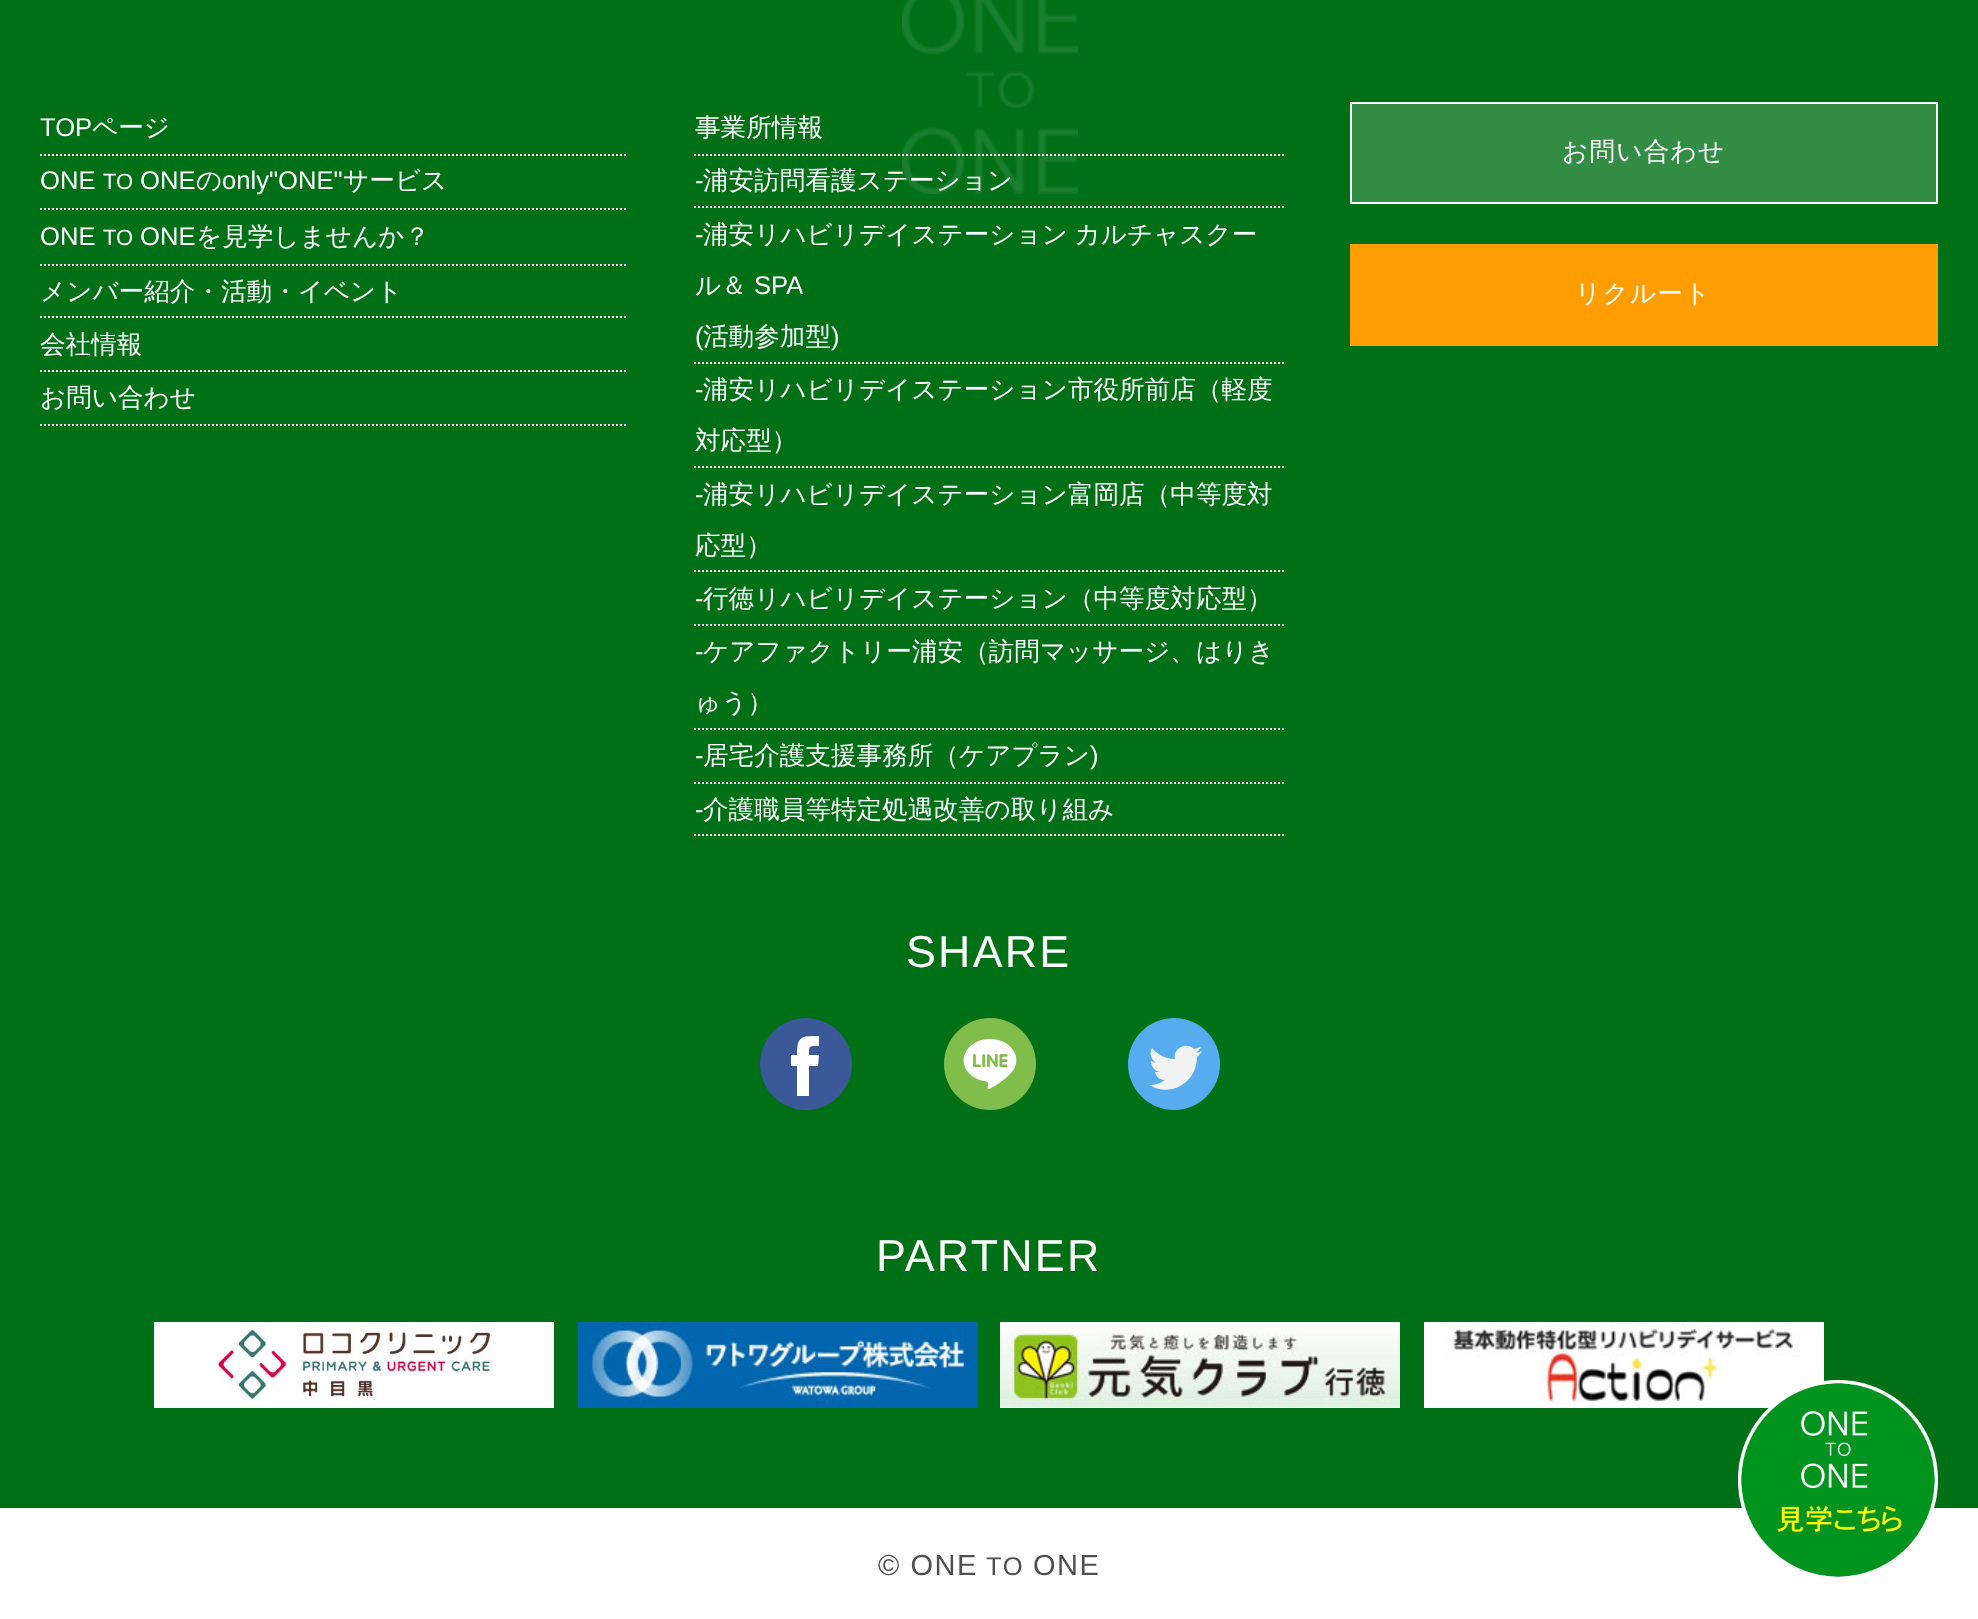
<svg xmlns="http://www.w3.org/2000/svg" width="1978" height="1619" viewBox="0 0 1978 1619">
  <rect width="100%" height="100%" fill="#007016"/>
  <image x="902" y="0" width="176" height="194" href="img1.png"/>
  <path d="M40 155H628" fill="none" stroke="#ffffff" stroke-width="2" stroke-dasharray="2 2"/>
  <text x="40" y="136" font-family="Liberation Sans" font-size="25.6" fill="#ffffff">TOP</text>
  <text x="92" y="136" font-family="WenQuanYi Zen Hei" font-size="25.6" font-weight="500" fill="#ffffff">ページ</text>
  <path d="M40 209H628" fill="none" stroke="#ffffff" stroke-width="2" stroke-dasharray="2 2"/>
  <text x="40" y="189" font-family="Liberation Sans" font-size="25.6" fill="#ffffff">ONE</text>
  <text x="103" y="189" font-family="Liberation Sans" font-size="22" fill="#ffffff">TO</text>
  <text x="140" y="189" font-family="Liberation Sans" font-size="25.6" fill="#ffffff">ONE</text>
  <text x="196" y="189" font-family="WenQuanYi Zen Hei" font-size="25.6" font-weight="500" fill="#ffffff">の</text>
  <text x="222" y="189" font-family="Liberation Sans" font-size="25.6" fill="#ffffff">only"ONE"</text>
  <text x="343" y="189" font-family="WenQuanYi Zen Hei" font-size="25.6" font-weight="500" fill="#ffffff">サービス</text>
  <path d="M40 265H628" fill="none" stroke="#ffffff" stroke-width="2" stroke-dasharray="2 2"/>
  <text x="40" y="245" font-family="Liberation Sans" font-size="25.6" fill="#ffffff">ONE</text>
  <text x="103" y="245" font-family="Liberation Sans" font-size="22" fill="#ffffff">TO</text>
  <text x="140" y="245" font-family="Liberation Sans" font-size="25.6" fill="#ffffff">ONE</text>
  <text x="196" y="245" font-family="WenQuanYi Zen Hei" font-size="25.6" font-weight="500" fill="#ffffff">を見学しませんか？</text>
  <path d="M40 317H628" fill="none" stroke="#ffffff" stroke-width="2" stroke-dasharray="2 2"/>
  <text x="40" y="300" font-family="WenQuanYi Zen Hei" font-size="25.6" font-weight="500" fill="#ffffff">メンバー紹介・活動・イベント</text>
  <path d="M40 371H628" fill="none" stroke="#ffffff" stroke-width="2" stroke-dasharray="2 2"/>
  <text x="40" y="353" font-family="WenQuanYi Zen Hei" font-size="25.6" font-weight="500" fill="#ffffff">会社情報</text>
  <path d="M40 425H628" fill="none" stroke="#ffffff" stroke-width="2" stroke-dasharray="2 2"/>
  <text x="40" y="406" font-family="WenQuanYi Zen Hei" font-size="25.6" font-weight="500" fill="#ffffff">お問い合わせ</text>
  <path d="M694 155H1284" fill="none" stroke="#ffffff" stroke-width="2" stroke-dasharray="2 2"/>
  <text x="695" y="136" font-family="WenQuanYi Zen Hei" font-size="25.6" font-weight="500" fill="#ffffff">事業所情報</text>
  <path d="M694 207H1284" fill="none" stroke="#ffffff" stroke-width="2" stroke-dasharray="2 2"/>
  <text x="695" y="189" font-family="Liberation Sans" font-size="25.6" fill="#ffffff">-</text>
  <text x="703" y="189" font-family="WenQuanYi Zen Hei" font-size="25.6" font-weight="500" fill="#ffffff">浦安訪問看護ステーション</text>
  <path d="M694 363H1284" fill="none" stroke="#ffffff" stroke-width="2" stroke-dasharray="2 2"/>
  <text x="695" y="243" font-family="Liberation Sans" font-size="25.6" fill="#ffffff">-</text>
  <text x="703" y="243" word-spacing="-1" font-family="WenQuanYi Zen Hei" font-size="25.6" font-weight="500" fill="#ffffff">浦安リハビリデイステーション カルチャスクー</text>
  <text x="695" y="294" font-family="WenQuanYi Zen Hei" font-size="25.6" font-weight="500" fill="#ffffff">ル＆</text>
  <text x="754" y="294" font-family="Liberation Sans" font-size="25.6" fill="#ffffff">SPA</text>
  <text x="695" y="345" font-family="Liberation Sans" font-size="25.6" fill="#ffffff">(</text>
  <text x="703" y="345" font-family="WenQuanYi Zen Hei" font-size="25.6" font-weight="500" fill="#ffffff">活動参加型</text>
  <text x="831" y="345" font-family="Liberation Sans" font-size="25.6" fill="#ffffff">)</text>
  <path d="M694 467H1284" fill="none" stroke="#ffffff" stroke-width="2" stroke-dasharray="2 2"/>
  <text x="695" y="398" font-family="Liberation Sans" font-size="25.6" fill="#ffffff">-</text>
  <text x="703" y="398" font-family="WenQuanYi Zen Hei" font-size="25.6" font-weight="500" fill="#ffffff">浦安リハビリデイステーション市役所前店（軽度</text>
  <text x="695" y="449" font-family="WenQuanYi Zen Hei" font-size="25.6" font-weight="500" fill="#ffffff">対応型）</text>
  <path d="M694 571H1284" fill="none" stroke="#ffffff" stroke-width="2" stroke-dasharray="2 2"/>
  <text x="695" y="503" font-family="Liberation Sans" font-size="25.6" fill="#ffffff">-</text>
  <text x="703" y="503" font-family="WenQuanYi Zen Hei" font-size="25.6" font-weight="500" fill="#ffffff">浦安リハビリデイステーション富岡店（中等度対</text>
  <text x="695" y="554" font-family="WenQuanYi Zen Hei" font-size="25.6" font-weight="500" fill="#ffffff">応型）</text>
  <path d="M694 625H1284" fill="none" stroke="#ffffff" stroke-width="2" stroke-dasharray="2 2"/>
  <text x="695" y="607" font-family="Liberation Sans" font-size="25.6" fill="#ffffff">-</text>
  <text x="703" y="607" font-family="WenQuanYi Zen Hei" font-size="25.6" font-weight="500" fill="#ffffff">行徳リハビリデイステーション（中等度対応型）</text>
  <path d="M694 729H1284" fill="none" stroke="#ffffff" stroke-width="2" stroke-dasharray="2 2"/>
  <text x="695" y="660" font-family="Liberation Sans" font-size="25.6" fill="#ffffff">-</text>
  <text x="703" y="660" font-family="WenQuanYi Zen Hei" font-size="25.6" font-weight="500" fill="#ffffff">ケアファクトリー浦安（訪問マッサージ、はりき</text>
  <text x="695" y="711" font-family="WenQuanYi Zen Hei" font-size="25.6" font-weight="500" fill="#ffffff">ゅう）</text>
  <path d="M694 783H1284" fill="none" stroke="#ffffff" stroke-width="2" stroke-dasharray="2 2"/>
  <text x="695" y="764" font-family="Liberation Sans" font-size="25.6" fill="#ffffff">-</text>
  <text x="703" y="764" font-family="WenQuanYi Zen Hei" font-size="25.6" font-weight="500" fill="#ffffff">居宅介護支援事務所（ケアプラン</text>
  <text x="1090" y="764" font-family="Liberation Sans" font-size="25.6" fill="#ffffff">)</text>
  <path d="M694 835H1284" fill="none" stroke="#ffffff" stroke-width="2" stroke-dasharray="2 2"/>
  <text x="695" y="818" font-family="Liberation Sans" font-size="25.6" fill="#ffffff">-</text>
  <text x="703" y="818" font-family="WenQuanYi Zen Hei" font-size="25.6" font-weight="500" fill="#ffffff">介護職員等特定処遇改善の取り組み</text>
  <rect x="1351" y="103" width="586" height="100" fill="#338d45" stroke="#ffffff" stroke-width="2"/>
  <text x="1562" y="160" font-family="WenQuanYi Zen Hei" font-size="25.6" font-weight="500" letter-spacing="1.25" fill="#ffffff">お問い合わせ</text>
  <rect x="1350" y="244" width="588" height="102" fill="#ff9e00"/>
  <text x="1575" y="302" font-family="WenQuanYi Zen Hei" font-size="25.6" font-weight="500" letter-spacing="1.25" fill="#ffffff">リクルート</text>
  <text x="906" y="967" font-family="Liberation Sans" font-size="44.75" letter-spacing="2.25" fill="#ffffff">SHARE</text>
  <circle cx="806" cy="1064" r="46" fill="#3b5998"/>
  <path d="M818 1066H809V1096H797V1066H791V1055H797C797 1036 801 1036 819 1036V1046C809 1046 809 1045 809 1055H819Z" fill="#ffffff"/>
  <image x="944" y="1018" width="92" height="92" href="img2.png"/>
  <circle cx="1174" cy="1064" r="46" fill="#55acee"/>
  <path d="M1202 1051L1196 1053C1198 1051 1200 1049 1201 1047L1194 1049C1186 1041 1172 1049 1175 1059C1166 1059 1158 1055 1152 1048C1149 1053 1151 1059 1156 1063L1151 1061C1151 1066 1154 1071 1160 1072H1155C1156 1077 1160 1080 1165 1080C1160 1084 1154 1085 1149 1085C1170 1098 1197 1083 1197 1057C1199 1055 1201 1053 1202 1051Z" fill="#f1f2f2"/>
  <text x="876" y="1271" font-family="Liberation Sans" font-size="44.75" letter-spacing="2.25" fill="#ffffff">PARTNER</text>
  <image x="154" y="1322" width="400" height="86" href="img3.png"/>
  <image x="578" y="1322" width="400" height="86" href="img4.png"/>
  <image x="1000" y="1322" width="400" height="86" href="img5.png"/>
  <image x="1424" y="1322" width="400" height="86" href="img6.png"/>
  <rect x="0" y="1508" width="1978" height="111" fill="#ffffff"/>
  <text x="878" y="1575" font-family="Liberation Sans" font-size="29" letter-spacing="1.5" fill="#4f4f4f">© ONE</text>
  <text x="986" y="1575" font-family="Liberation Sans" font-size="25.6" letter-spacing="1.5" fill="#4f4f4f">TO</text>
  <text x="1033" y="1575" font-family="Liberation Sans" font-size="29" letter-spacing="1.5" fill="#4f4f4f">ONE</text>
  <image x="1738" y="1380" width="200" height="197" href="img7.png"/>
</svg>
